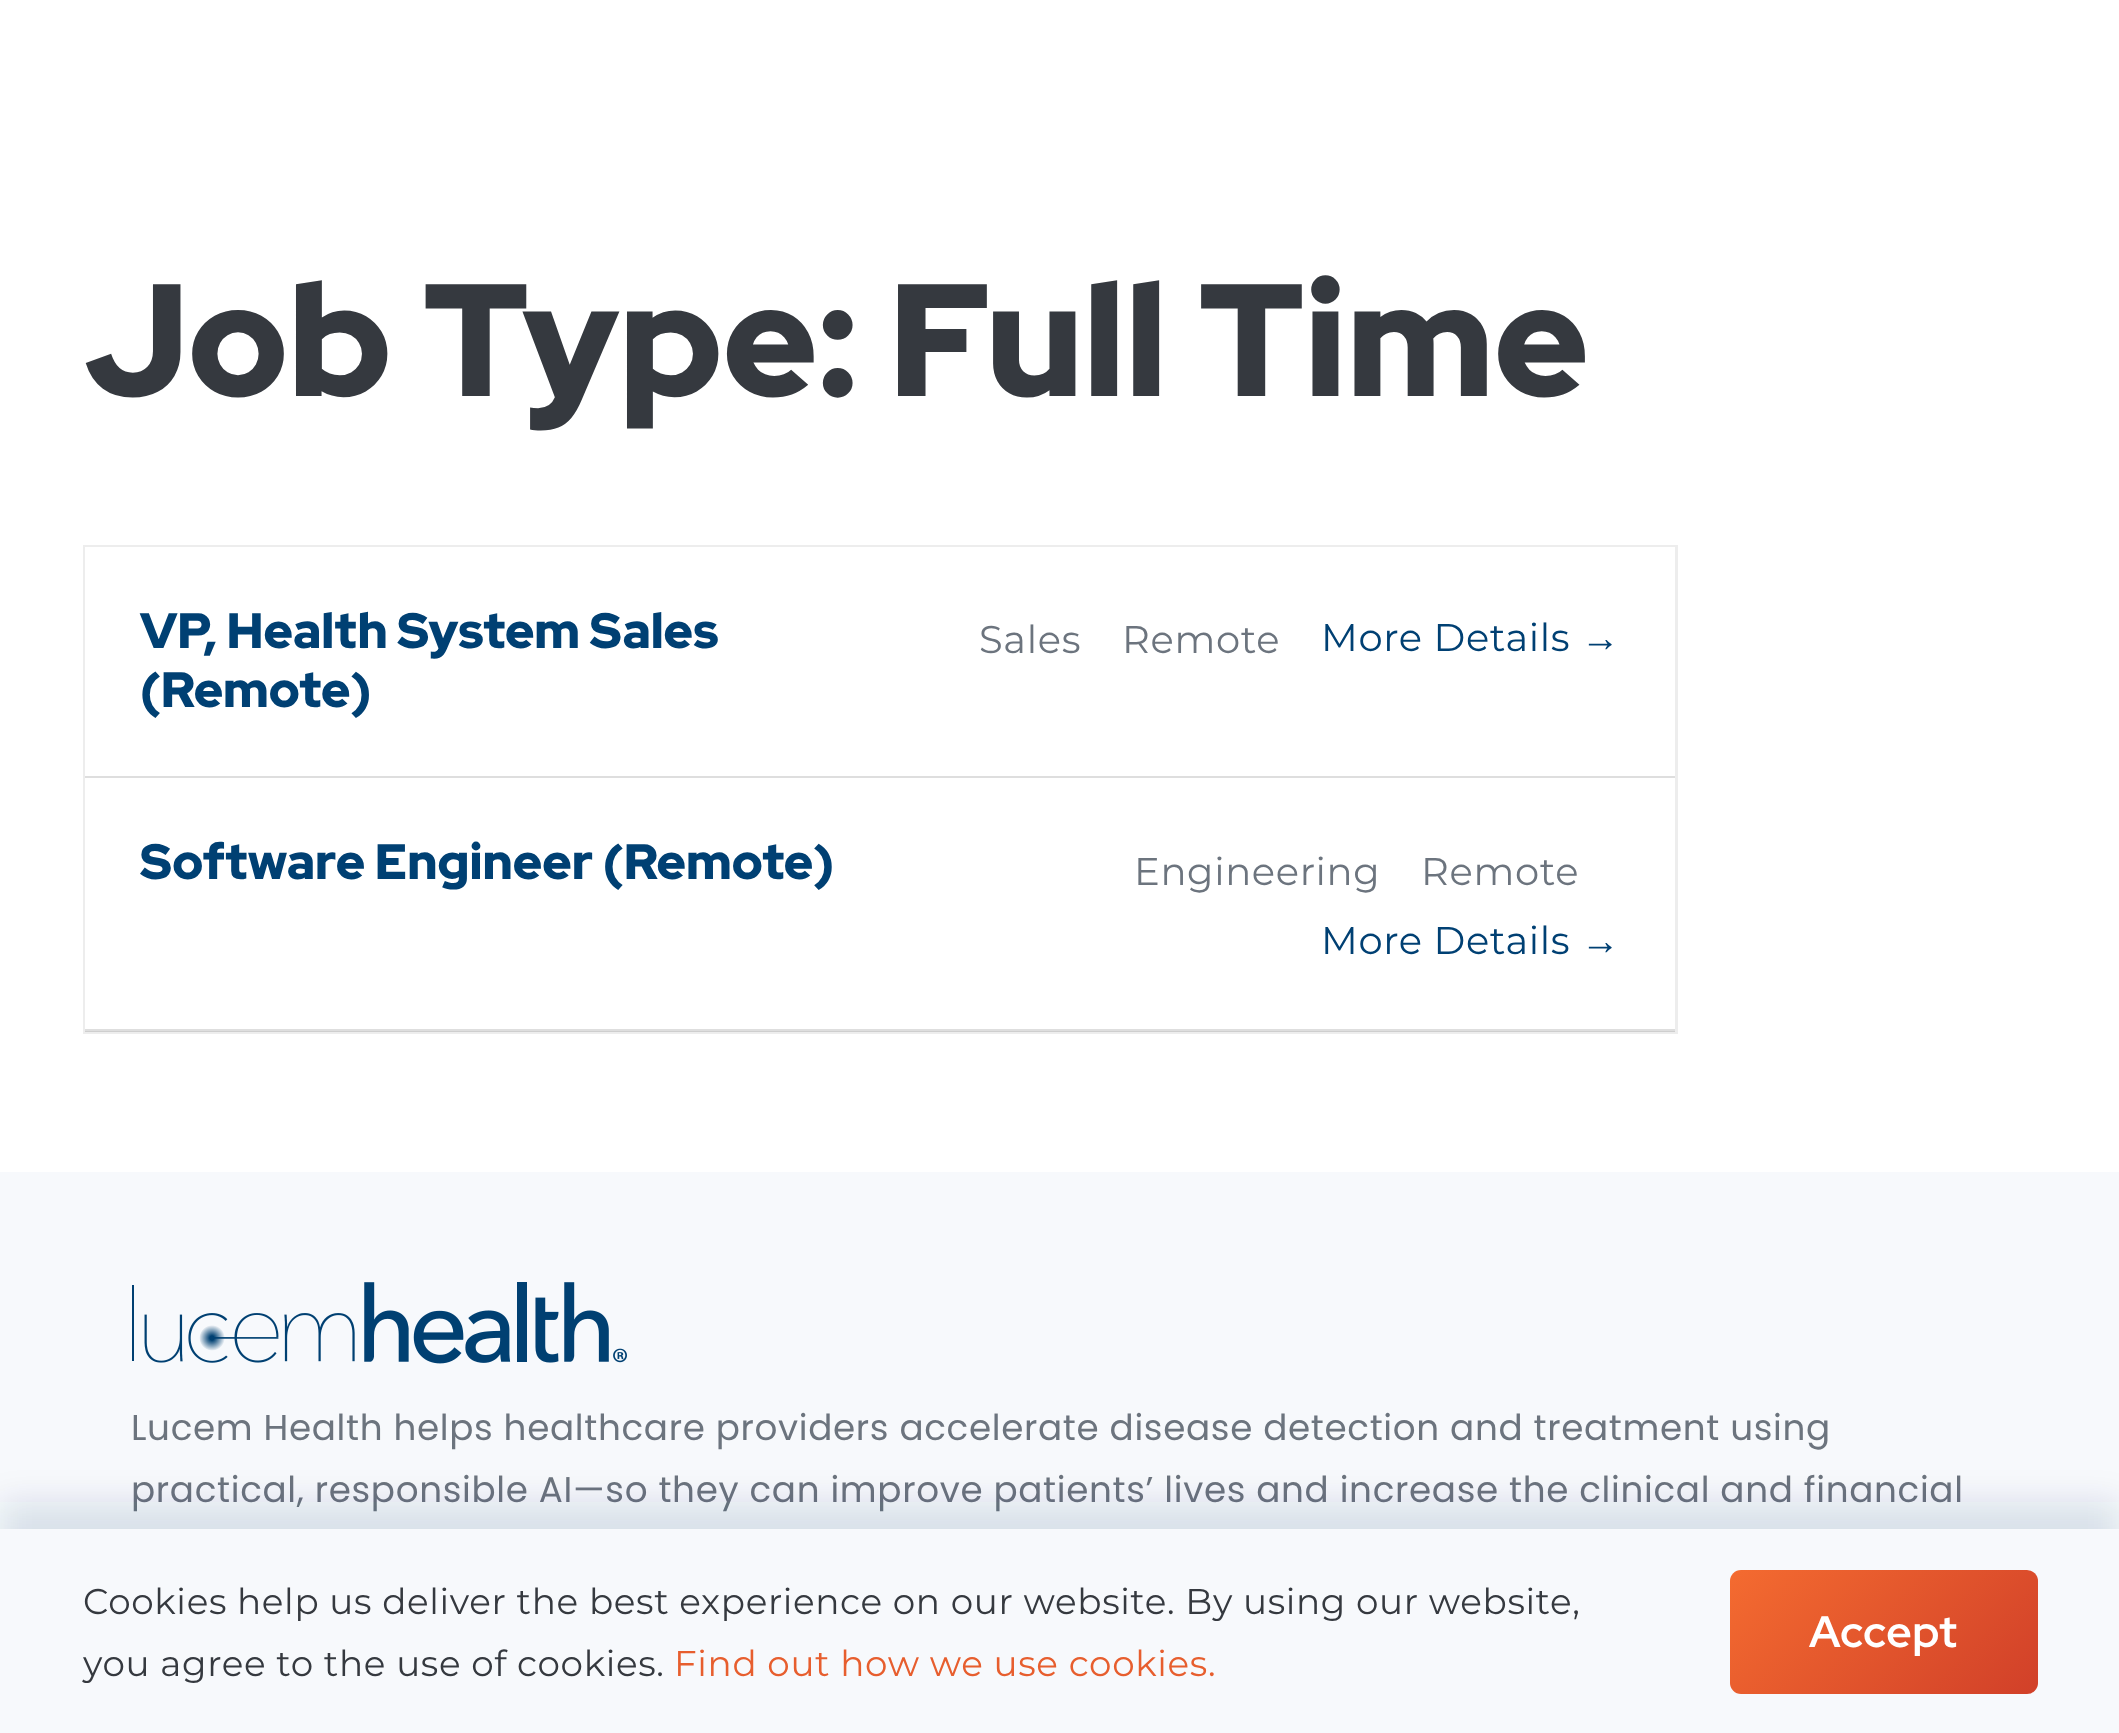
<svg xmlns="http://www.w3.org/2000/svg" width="2119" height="1733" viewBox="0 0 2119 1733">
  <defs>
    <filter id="blur1" x="-50%" y="-200%" width="200%" height="500%"><feGaussianBlur stdDeviation="16.5"/></filter>
    <linearGradient id="g1" gradientUnits="userSpaceOnUse" x1="1776" y1="1524" x2="1992" y2="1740"><stop offset="0" stop-color="#f46b30"/><stop offset="1" stop-color="#d14029"/></linearGradient>
  </defs>
  <rect width="100%" height="100%" fill="#ffffff"/>
  <text x="83" y="396" font-family="Red Hat Display" font-size="159.75" font-weight="900" fill="#35393f">Job Type: Full Time</text>
  <rect x="84.5" y="546.5" width="1592" height="486" fill="none" stroke="#ededed" stroke-width="3"/>
  <rect x="85" y="547" width="1590" height="231" fill="#ffffff"/>
  <rect x="85" y="776" width="1590" height="2" fill="#000000" fill-opacity="0.13"/>
  <text x="140" y="648" font-family="Red Hat Display" font-size="49.5" font-weight="900" fill="#004073">VP, Health System Sales</text>
  <text x="140" y="707" font-family="Red Hat Display" font-size="49.5" font-weight="900" fill="#004073">(Remote)</text>
  <text x="979" y="653" font-family="Montserrat" font-size="38.5" letter-spacing="0.66" fill="#6c747e">Sales</text>
  <text x="1122" y="653" font-family="Montserrat" font-size="38.5" letter-spacing="0.66" fill="#6c747e">Remote</text>
  <text x="1321" y="651" font-family="Montserrat" font-size="38.5" letter-spacing="0.66" fill="#004073">More Details</text>
  <text x="1581" y="651" font-family="Liberation Sans" font-size="38.5" letter-spacing="0.66" fill="#004073">→</text>
  <rect x="85" y="778" width="1" height="253" fill="#ffffff"/>
  <rect x="85" y="1029" width="1590" height="3" fill="#000000" fill-opacity="0.13"/>
  <text x="140" y="879" font-family="Red Hat Display" font-size="49.5" font-weight="900" fill="#004073">Software Engineer (Remote)</text>
  <text x="1134" y="885" font-family="Montserrat" font-size="38.5" letter-spacing="0.66" fill="#6c747e">Engineering</text>
  <text x="1421" y="885" font-family="Montserrat" font-size="38.5" letter-spacing="0.66" fill="#6c747e">Remote</text>
  <text x="1321" y="954" font-family="Montserrat" font-size="38.5" letter-spacing="0.66" fill="#004073">More Details</text>
  <text x="1581" y="954" font-family="Liberation Sans" font-size="38.5" letter-spacing="0.66" fill="#004073">→</text>
  <rect x="0" y="1172" width="2119" height="357" fill="#f7f9fc"/>
  <image x="132" y="1282" width="495" height="82" href="img1.png"/>
  <text x="131" y="1440" font-family="Poppins" font-size="35.75" letter-spacing="0.66" fill="#6c747e">Lucem Health helps healthcare providers accelerate disease detection and treatment using</text>
  <text x="131" y="1502" font-family="Poppins" font-size="35.75" letter-spacing="0.66" fill="#6c747e">practical, responsible AI—so they can improve patients’ lives and increase the clinical and financial</text>
  <rect x="0" y="1502" width="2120" height="206" fill="#223865" fill-opacity="0.12" filter="url(#blur1)"/>
  <rect x="0" y="1529" width="2119" height="204" fill="#f7f9fc"/>
  <text x="83" y="1614" font-family="Montserrat" font-size="35.75" letter-spacing="0.66" fill="#35393f">Cookies help us deliver the best experience on our website. By using our website,</text>
  <text x="83" y="1676" font-family="Montserrat" font-size="35.75" letter-spacing="0.66" fill="#35393f">you agree to the use of cookies.</text>
  <text x="674" y="1676" font-family="Montserrat" font-size="35.75" letter-spacing="0.66" fill="#e75e2e">Find out how we use cookies.</text>
  <rect x="1730" y="1570" width="308" height="124" rx="11" fill="url(#g1)"/>
  <text x="1809" y="1647" font-family="Red Hat Display" font-size="44" font-weight="bold" letter-spacing="0.66" fill="#ffffff">Accept</text>
</svg>
